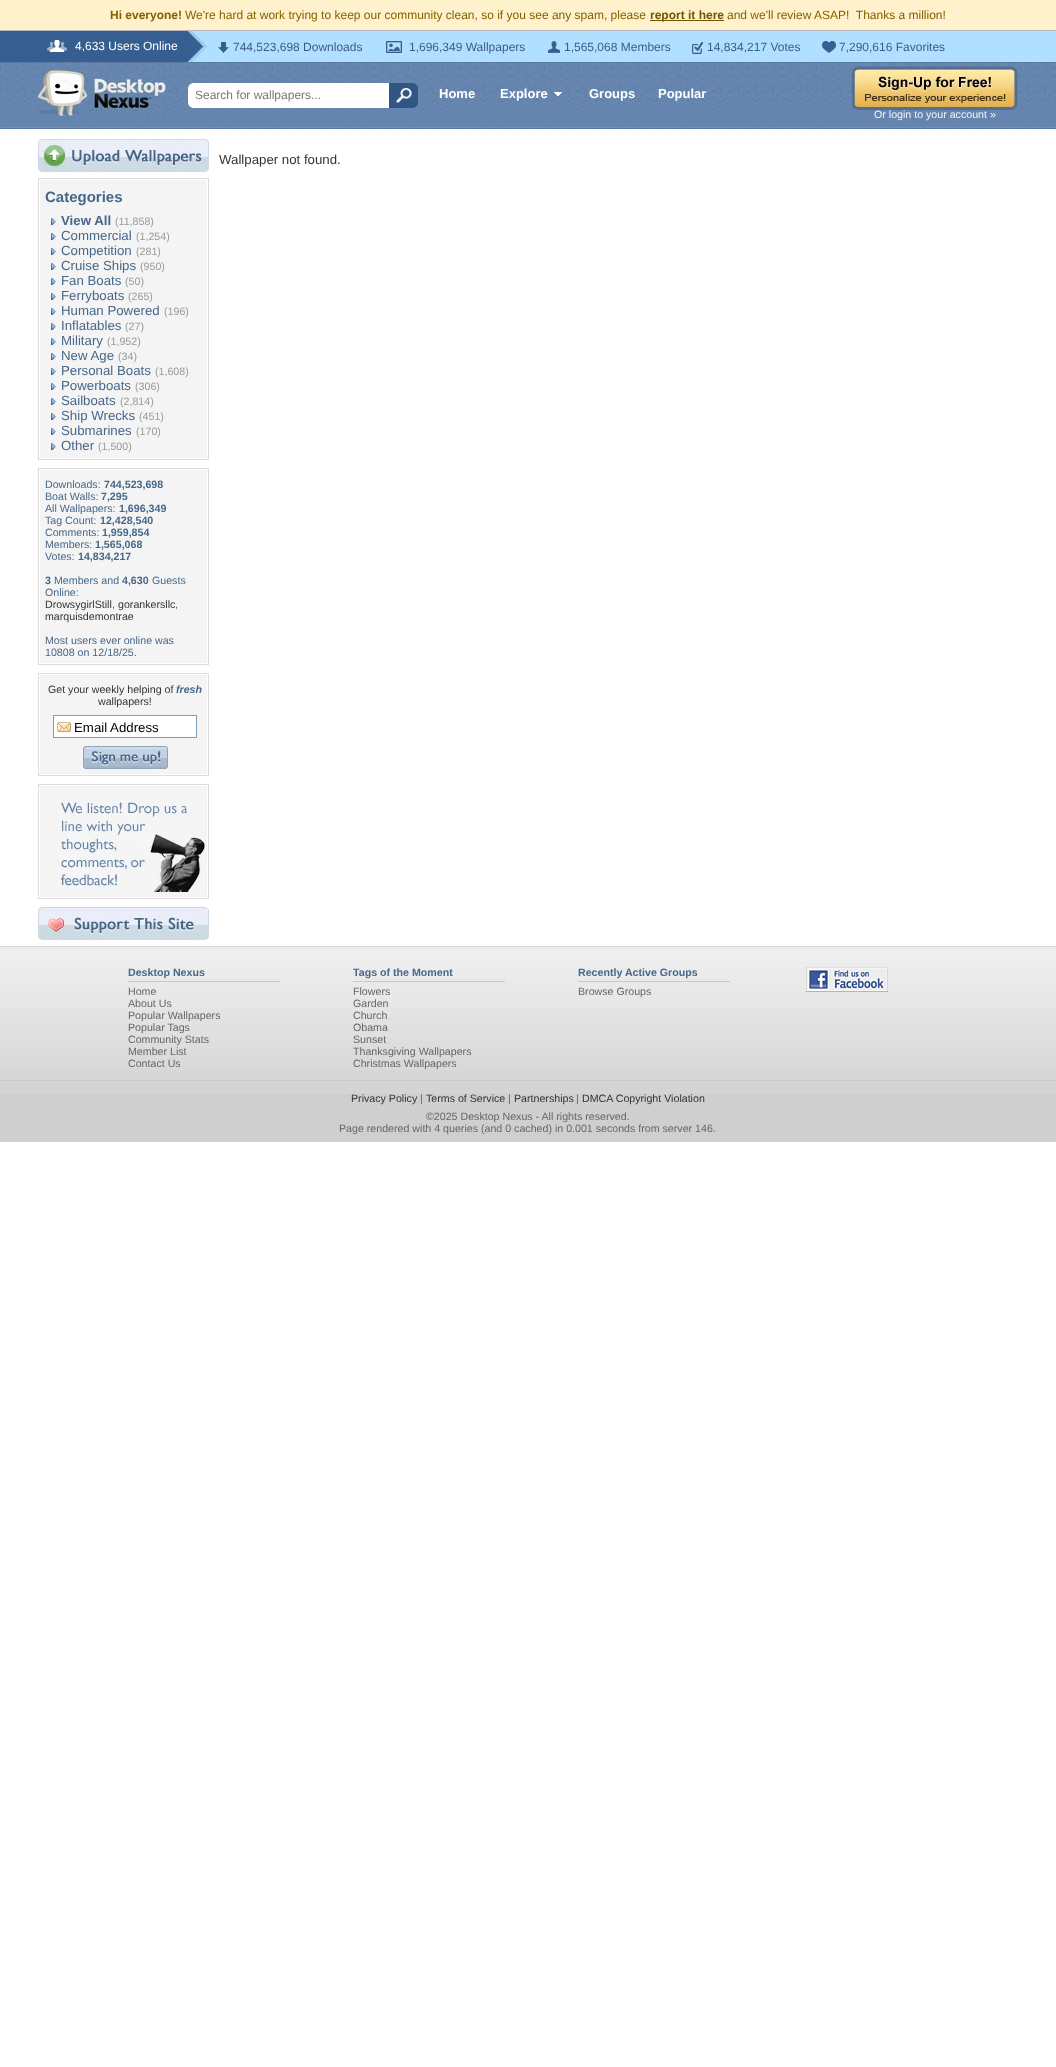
<svg xmlns="http://www.w3.org/2000/svg" width="1056" height="2067" viewBox="0 0 1056 2067">
  <rect width="100%" height="100%" fill="#ffffff"/>
  <rect x="0" y="0" width="1056" height="30" fill="#fff1cb"/>
  <text x="110" y="19" font-family="Liberation Sans" font-size="12" font-weight="bold" fill="#826200">Hi everyone!</text>
  <text x="185" y="19" font-family="Liberation Sans" font-size="12" fill="#826200">We're hard at work trying to keep our community clean, so if you see any spam, please</text>
  <rect x="650" y="20" width="74" height="1" fill="#705500"/>
  <text x="650" y="19" font-family="Liberation Sans" font-size="12" font-weight="bold" fill="#705500">report it here</text>
  <text x="727" y="19" font-family="Liberation Sans" font-size="12" fill="#826200" xml:space="preserve">and we'll review ASAP!  Thanks a million!</text>
  <rect x="207" y="31" width="849" height="31" fill="#b1dfff"/>
  <rect x="0" y="30" width="1056" height="1" fill="#b6bac0"/>
  <rect x="0" y="31" width="188" height="31" fill="#375e90"/>
  <image x="47" y="40" width="20" height="12" href="img1.png"/>
  <text x="75" y="50" font-family="Liberation Sans" font-size="12" fill="#ffffff">4,633 Users Online</text>
  <image x="188" y="31" width="19" height="31" href="img2.png"/>
  <image x="218" y="42" width="11" height="11" href="img3.png"/>
  <text x="233" y="51" font-family="Liberation Sans" font-size="12" fill="#375e90">744,523,698 Downloads</text>
  <image x="386" y="41" width="16" height="12" href="img4.png"/>
  <text x="409" y="51" font-family="Liberation Sans" font-size="12" fill="#375e90">1,696,349 Wallpapers</text>
  <image x="548" y="41" width="12" height="12" href="img5.png"/>
  <text x="564" y="51" font-family="Liberation Sans" font-size="12" fill="#375e90">1,565,068 Members</text>
  <image x="692" y="42" width="11" height="12" href="img6.png"/>
  <text x="707" y="51" font-family="Liberation Sans" font-size="12" fill="#375e90">14,834,217 Votes</text>
  <image x="822" y="41" width="14" height="12" href="img7.png"/>
  <text x="839" y="51" font-family="Liberation Sans" font-size="12" fill="#375e90">7,290,616 Favorites</text>
  <image x="0" y="62" width="1056" height="67" href="img8.png"/>
  <image x="38" y="70" width="128" height="46" href="img9.png"/>
  <path d="M194 83H405V108H194C190.5 108 188 105.5 188 102V89C188 85.5 190.5 83 194 83Z" fill="#ffffff"/>
  <text x="195" y="99" font-family="Liberation Sans" font-size="12" fill="#777777">Search for wallpapers...</text>
  <path d="M389 83H412C415.5 83 418 85.5 418 89V102C418 105.5 415.5 108 412 108H389Z" fill="#305686"/>
  <image x="396" y="88" width="16" height="15" href="img10.png"/>
  <text x="439" y="98" font-family="Liberation Sans" font-size="13" font-weight="bold" fill="#ffffff">Home</text>
  <text x="500" y="98" font-family="Liberation Sans" font-size="13" font-weight="bold" fill="#ffffff">Explore</text>
  <image x="553" y="92" width="10" height="5" href="img11.png"/>
  <text x="589" y="98" font-family="Liberation Sans" font-size="13" font-weight="bold" fill="#ffffff">Groups</text>
  <text x="658" y="98" font-family="Liberation Sans" font-size="13" font-weight="bold" fill="#ffffff">Popular</text>
  <image x="852" y="66" width="166" height="44" href="img12.png"/>
  <text x="874" y="118" font-family="Liberation Sans" font-size="10.65" fill="#f4f4f4">Or login to your account »</text>
  <text x="219" y="164" font-family="Liberation Sans" font-size="13.25" fill="#333333">Wallpaper not found.</text>
  <image x="38" y="139" width="171" height="33" href="img13.png"/>
  <rect x="38.5" y="178.5" width="170" height="281" fill="none" stroke="#dcdcdc"/>
  <rect x="40" y="180" width="167" height="278" fill="#f4f4f4"/>
  <text x="45" y="202" font-family="Liberation Sans" font-size="15" font-weight="bold" fill="#46678a">Categories</text>
  <image x="51" y="218" width="5" height="7" href="img14.png"/>
  <text x="61" y="225" font-family="Liberation Sans" font-size="13.25" font-weight="bold" fill="#46678a">View All</text>
  <text x="115" y="225" font-family="Liberation Sans" font-size="10.65" fill="#999999">(11,858)</text>
  <image x="51" y="233" width="5" height="7" href="img14.png"/>
  <text x="61" y="240" font-family="Liberation Sans" font-size="13.25" fill="#46678a">Commercial</text>
  <text x="136" y="240" font-family="Liberation Sans" font-size="10.65" fill="#999999">(1,254)</text>
  <image x="51" y="248" width="5" height="7" href="img14.png"/>
  <text x="61" y="255" font-family="Liberation Sans" font-size="13.25" fill="#46678a">Competition</text>
  <text x="136" y="255" font-family="Liberation Sans" font-size="10.65" fill="#999999">(281)</text>
  <image x="51" y="263" width="5" height="7" href="img14.png"/>
  <text x="61" y="270" font-family="Liberation Sans" font-size="13.25" fill="#46678a">Cruise Ships</text>
  <text x="140" y="270" font-family="Liberation Sans" font-size="10.65" fill="#999999">(950)</text>
  <image x="51" y="278" width="5" height="7" href="img14.png"/>
  <text x="61" y="285" font-family="Liberation Sans" font-size="13.25" fill="#46678a">Fan Boats</text>
  <text x="125" y="285" font-family="Liberation Sans" font-size="10.65" fill="#999999">(50)</text>
  <image x="51" y="293" width="5" height="7" href="img14.png"/>
  <text x="61" y="300" font-family="Liberation Sans" font-size="13.25" fill="#46678a">Ferryboats</text>
  <text x="128" y="300" font-family="Liberation Sans" font-size="10.65" fill="#999999">(265)</text>
  <image x="51" y="308" width="5" height="7" href="img14.png"/>
  <text x="61" y="315" font-family="Liberation Sans" font-size="13.25" fill="#46678a">Human Powered</text>
  <text x="164" y="315" font-family="Liberation Sans" font-size="10.65" fill="#999999">(196)</text>
  <image x="51" y="323" width="5" height="7" href="img14.png"/>
  <text x="61" y="330" font-family="Liberation Sans" font-size="13.25" fill="#46678a">Inflatables</text>
  <text x="125" y="330" font-family="Liberation Sans" font-size="10.65" fill="#999999">(27)</text>
  <image x="51" y="338" width="5" height="7" href="img14.png"/>
  <text x="61" y="345" font-family="Liberation Sans" font-size="13.25" fill="#46678a">Military</text>
  <text x="107" y="345" font-family="Liberation Sans" font-size="10.65" fill="#999999">(1,952)</text>
  <image x="51" y="353" width="5" height="7" href="img14.png"/>
  <text x="61" y="360" font-family="Liberation Sans" font-size="13.25" fill="#46678a">New Age</text>
  <text x="118" y="360" font-family="Liberation Sans" font-size="10.65" fill="#999999">(34)</text>
  <image x="51" y="368" width="5" height="7" href="img14.png"/>
  <text x="61" y="375" font-family="Liberation Sans" font-size="13.25" fill="#46678a">Personal Boats</text>
  <text x="155" y="375" font-family="Liberation Sans" font-size="10.65" fill="#999999">(1,608)</text>
  <image x="51" y="383" width="5" height="7" href="img14.png"/>
  <text x="61" y="390" font-family="Liberation Sans" font-size="13.25" fill="#46678a">Powerboats</text>
  <text x="135" y="390" font-family="Liberation Sans" font-size="10.65" fill="#999999">(306)</text>
  <image x="51" y="398" width="5" height="7" href="img14.png"/>
  <text x="61" y="405" font-family="Liberation Sans" font-size="13.25" fill="#46678a">Sailboats</text>
  <text x="120" y="405" font-family="Liberation Sans" font-size="10.65" fill="#999999">(2,814)</text>
  <image x="51" y="413" width="5" height="7" href="img14.png"/>
  <text x="61" y="420" font-family="Liberation Sans" font-size="13.25" fill="#46678a">Ship Wrecks</text>
  <text x="139" y="420" font-family="Liberation Sans" font-size="10.65" fill="#999999">(451)</text>
  <image x="51" y="428" width="5" height="7" href="img14.png"/>
  <text x="61" y="435" font-family="Liberation Sans" font-size="13.25" fill="#46678a">Submarines</text>
  <text x="136" y="435" font-family="Liberation Sans" font-size="10.65" fill="#999999">(170)</text>
  <image x="51" y="443" width="5" height="7" href="img14.png"/>
  <text x="61" y="450" font-family="Liberation Sans" font-size="13.25" fill="#46678a">Other</text>
  <text x="98" y="450" font-family="Liberation Sans" font-size="10.65" fill="#999999">(1,500)</text>
  <rect x="38.5" y="468.5" width="170" height="196" fill="none" stroke="#dcdcdc"/>
  <rect x="40" y="470" width="167" height="193" fill="#f4f4f4"/>
  <text x="45" y="488" font-family="Liberation Sans" font-size="10.65" fill="#46678a">Downloads:</text>
  <text x="104" y="488" font-family="Liberation Sans" font-size="10.65" font-weight="bold" fill="#46678a">744,523,698</text>
  <text x="45" y="500" font-family="Liberation Sans" font-size="10.65" fill="#46678a">Boat Walls:</text>
  <text x="101" y="500" font-family="Liberation Sans" font-size="10.65" font-weight="bold" fill="#46678a">7,295</text>
  <text x="45" y="512" font-family="Liberation Sans" font-size="10.65" fill="#46678a">All Wallpapers:</text>
  <text x="119" y="512" font-family="Liberation Sans" font-size="10.65" font-weight="bold" fill="#46678a">1,696,349</text>
  <text x="45" y="524" font-family="Liberation Sans" font-size="10.65" fill="#46678a">Tag Count:</text>
  <text x="100" y="524" font-family="Liberation Sans" font-size="10.65" font-weight="bold" fill="#46678a">12,428,540</text>
  <text x="45" y="536" font-family="Liberation Sans" font-size="10.65" fill="#46678a">Comments:</text>
  <text x="102" y="536" font-family="Liberation Sans" font-size="10.65" font-weight="bold" fill="#46678a">1,959,854</text>
  <text x="45" y="548" font-family="Liberation Sans" font-size="10.65" fill="#46678a">Members:</text>
  <text x="95" y="548" font-family="Liberation Sans" font-size="10.65" font-weight="bold" fill="#46678a">1,565,068</text>
  <text x="45" y="560" font-family="Liberation Sans" font-size="10.65" fill="#46678a">Votes:</text>
  <text x="78" y="560" font-family="Liberation Sans" font-size="10.65" font-weight="bold" fill="#46678a">14,834,217</text>
  <text x="45" y="584" font-family="Liberation Sans" font-size="10.65" font-weight="bold" fill="#46678a">3</text>
  <text x="54" y="584" font-family="Liberation Sans" font-size="10.65" fill="#46678a">Members and</text>
  <text x="122" y="584" font-family="Liberation Sans" font-size="10.65" font-weight="bold" fill="#46678a">4,630</text>
  <text x="152" y="584" font-family="Liberation Sans" font-size="10.65" fill="#46678a">Guests</text>
  <text x="45" y="596" font-family="Liberation Sans" font-size="10.65" fill="#46678a">Online:</text>
  <text x="45" y="608" font-family="Liberation Sans" font-size="10.65" fill="#333333">DrowsygirlStill</text>
  <text x="112" y="608" font-family="Liberation Sans" font-size="10.65" fill="#46678a">,</text>
  <text x="118" y="608" font-family="Liberation Sans" font-size="10.65" fill="#333333">gorankersllc</text>
  <text x="175" y="608" font-family="Liberation Sans" font-size="10.65" fill="#46678a">,</text>
  <text x="45" y="620" font-family="Liberation Sans" font-size="10.65" fill="#333333">marquisdemontrae</text>
  <text x="45" y="644" font-family="Liberation Sans" font-size="10.65" fill="#46678a">Most users ever online was</text>
  <text x="45" y="656" font-family="Liberation Sans" font-size="10.65" fill="#46678a">10808 on 12/18/25.</text>
  <rect x="38.5" y="673.5" width="170" height="102" fill="none" stroke="#dcdcdc"/>
  <rect x="40" y="675" width="167" height="99" fill="#f4f4f4"/>
  <text x="48" y="693" font-family="Liberation Sans" font-size="10.65" fill="#333333">Get your weekly helping of</text>
  <text x="176" y="693" font-family="Liberation Sans" font-size="10.65" font-weight="bold" font-style="italic" fill="#46678a">fresh</text>
  <text x="98" y="705" font-family="Liberation Sans" font-size="10.65" fill="#333333">wallpapers!</text>
  <rect x="54" y="716" width="142" height="21" fill="#ffffff"/>
  <image x="54" y="722" width="17" height="10" href="img15.png"/>
  <rect x="53.5" y="715.5" width="143" height="22" fill="none" stroke="#7f9db9"/>
  <text x="74" y="732" font-family="Liberation Sans" font-size="13.25" fill="#000000">Email Address</text>
  <image x="83" y="746" width="85" height="23" href="img16.png"/>
  <rect x="38.5" y="784.5" width="170" height="114" fill="none" stroke="#dcdcdc"/>
  <rect x="40" y="786" width="167" height="111" fill="#f4f4f4"/>
  <image x="58" y="801" width="147" height="91" href="img17.png"/>
  <image x="38" y="907" width="171" height="33" href="img18.png"/>
  <rect x="0" y="1094" width="1056" height="48" fill="#cfcfcf"/>
  <image x="0" y="946" width="1056" height="148" href="img19.png"/>
  <text x="128" y="976" font-family="Liberation Sans" font-size="10.65" font-weight="bold" fill="#46678a">Desktop Nexus</text>
  <rect x="128" y="981" width="152" height="1" fill="#c9c9c9"/>
  <text x="128" y="995" font-family="Liberation Sans" font-size="10.65" fill="#666666">Home</text>
  <text x="128" y="1007" font-family="Liberation Sans" font-size="10.65" fill="#666666">About Us</text>
  <text x="128" y="1019" font-family="Liberation Sans" font-size="10.65" fill="#666666">Popular Wallpapers</text>
  <text x="128" y="1031" font-family="Liberation Sans" font-size="10.65" fill="#666666">Popular Tags</text>
  <text x="128" y="1043" font-family="Liberation Sans" font-size="10.65" fill="#666666">Community Stats</text>
  <text x="128" y="1055" font-family="Liberation Sans" font-size="10.65" fill="#666666">Member List</text>
  <text x="128" y="1067" font-family="Liberation Sans" font-size="10.65" fill="#666666">Contact Us</text>
  <text x="353" y="976" font-family="Liberation Sans" font-size="10.65" font-weight="bold" fill="#46678a">Tags of the Moment</text>
  <rect x="353" y="981" width="152" height="1" fill="#c9c9c9"/>
  <text x="353" y="995" font-family="Liberation Sans" font-size="10.65" fill="#666666">Flowers</text>
  <text x="353" y="1007" font-family="Liberation Sans" font-size="10.65" fill="#666666">Garden</text>
  <text x="353" y="1019" font-family="Liberation Sans" font-size="10.65" fill="#666666">Church</text>
  <text x="353" y="1031" font-family="Liberation Sans" font-size="10.65" fill="#666666">Obama</text>
  <text x="353" y="1043" font-family="Liberation Sans" font-size="10.65" fill="#666666">Sunset</text>
  <text x="353" y="1055" font-family="Liberation Sans" font-size="10.65" fill="#666666">Thanksgiving Wallpapers</text>
  <text x="353" y="1067" font-family="Liberation Sans" font-size="10.65" fill="#666666">Christmas Wallpapers</text>
  <text x="578" y="976" font-family="Liberation Sans" font-size="10.65" font-weight="bold" fill="#46678a">Recently Active Groups</text>
  <rect x="578" y="981" width="152" height="1" fill="#c9c9c9"/>
  <text x="578" y="995" font-family="Liberation Sans" font-size="10.65" fill="#666666">Browse Groups</text>
  <image x="806" y="967" width="82" height="25" href="img20.png"/>
  <rect x="0" y="1080" width="1056" height="1" fill="#c9c9c9"/>
  <text x="351" y="1102" font-family="Liberation Sans" font-size="10.65" fill="#333333">Privacy Policy</text>
  <text x="420" y="1102" font-family="Liberation Sans" font-size="10.65" fill="#666666">|</text>
  <text x="426" y="1102" font-family="Liberation Sans" font-size="10.65" fill="#333333">Terms of Service</text>
  <text x="508" y="1102" font-family="Liberation Sans" font-size="10.65" fill="#666666">|</text>
  <text x="514" y="1102" font-family="Liberation Sans" font-size="10.65" fill="#333333">Partnerships</text>
  <text x="576" y="1102" font-family="Liberation Sans" font-size="10.65" fill="#666666">|</text>
  <text x="582" y="1102" font-family="Liberation Sans" font-size="10.65" fill="#333333">DMCA Copyright Violation</text>
  <text x="426" y="1120" font-family="Liberation Sans" font-size="10.65" fill="#666666">©2025 Desktop Nexus - All rights reserved.</text>
  <text x="339" y="1132" font-family="Liberation Sans" font-size="10.65" fill="#666666">Page rendered with 4 queries (and 0 cached) in 0.001 seconds from server 146.</text>
</svg>
